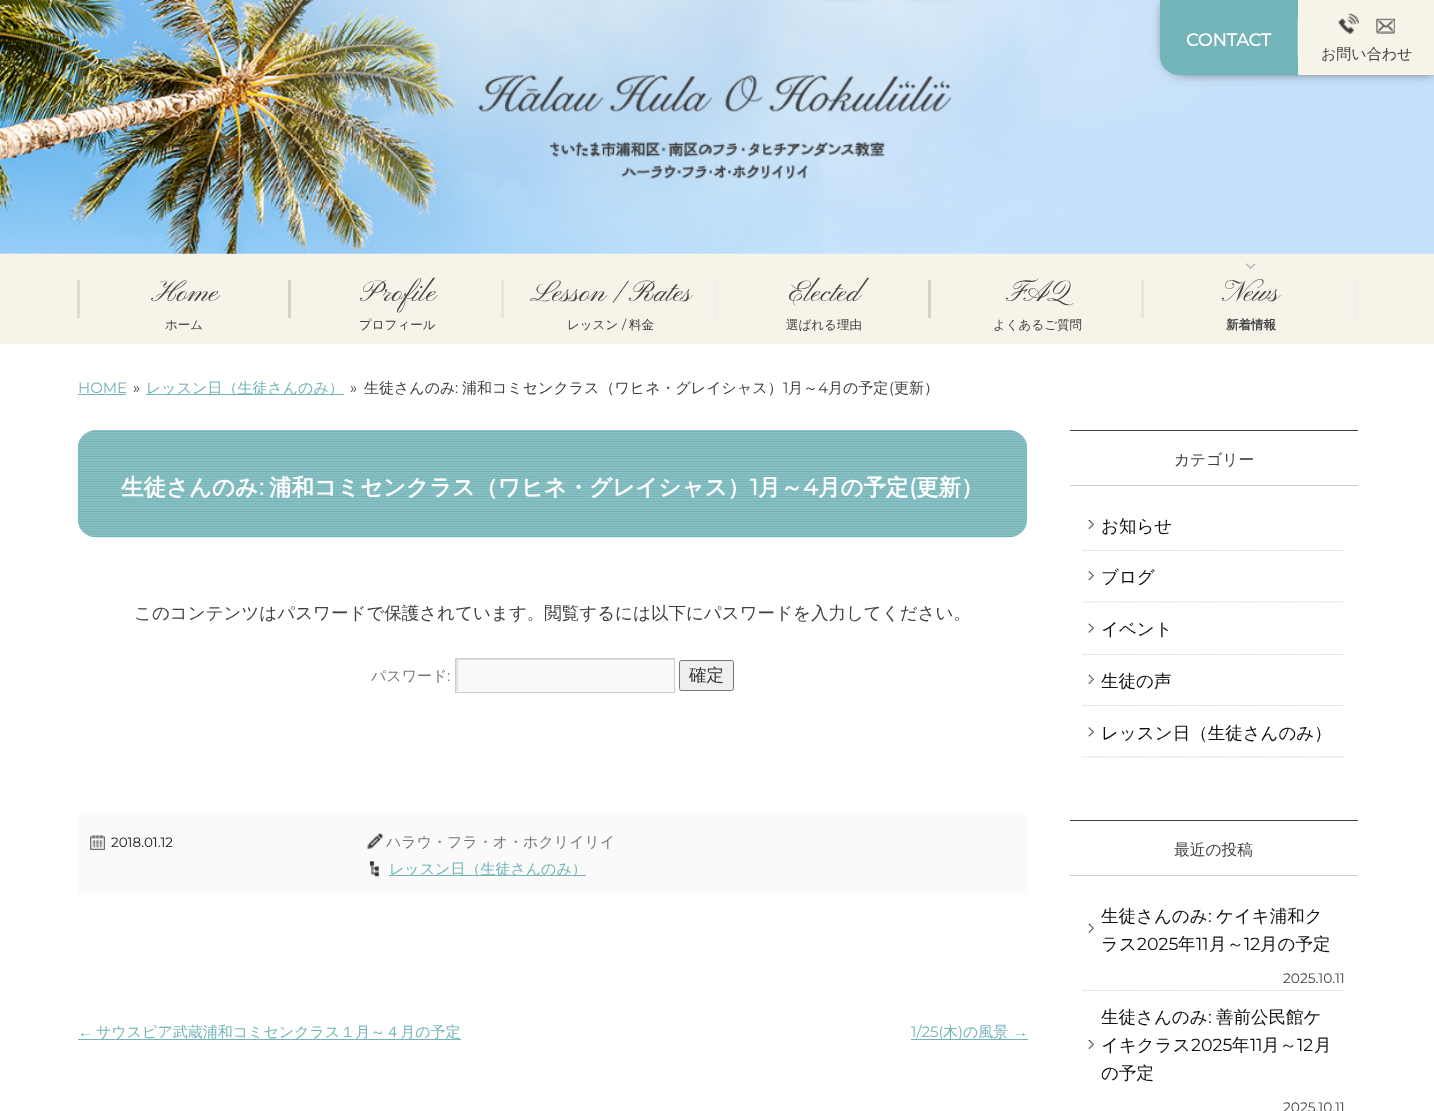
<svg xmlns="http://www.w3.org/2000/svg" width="1434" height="1111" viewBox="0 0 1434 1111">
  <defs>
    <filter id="blur1" x="-50%" y="-200%" width="200%" height="500%"><feGaussianBlur stdDeviation="6"/></filter>
    <clipPath id="clip1"><rect x="456" y="659" width="218" height="32"/></clipPath>
  </defs>
  <rect width="100%" height="100%" fill="#ffffff"/>
  <image x="0" y="0" width="1434" height="254" href="img1.png"/>
  <rect x="1164" y="-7" width="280" height="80" rx="21" fill="#575757" filter="url(#blur1)"/>
  <path d="M1160 0H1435V75H1179C1168.5 75 1160 66.5 1160 56Z" fill="#73b4b9"/>
  <text x="1186" y="46" font-family="Montserrat" font-size="17.5" font-weight="bold" fill="#ffffff">CONTACT</text>
  <rect x="1298" y="0" width="136" height="75" fill="#f6f3e9"/>
  <image x="1297" y="18" width="2" height="39" href="img2.png"/>
  <image x="1338" y="13" width="57" height="21" href="img3.png"/>
  <text x="1321" y="59" font-family="WenQuanYi Zen Hei" font-size="15" font-weight="500" fill="#404040">お問い合わせ</text>
  <image x="478" y="75" width="474" height="104" href="img4.png"/>
  <rect x="0" y="254" width="1434" height="90" fill="#f6f3e9"/>
  <rect x="77" y="280" width="3" height="38" fill="#dddbd3"/>
  <rect x="288" y="280" width="3" height="38" fill="#d4d2ca"/>
  <text x="151" y="301" font-family="Pinyon Script" font-size="30" fill="#404040">Home</text>
  <text x="165" y="329" font-family="WenQuanYi Zen Hei" font-size="12.5" font-weight="500" fill="#404040">ホーム</text>
  <rect x="501" y="280" width="3" height="38" fill="#e8e6df"/>
  <text x="360" y="301" font-family="Pinyon Script" font-size="30" fill="#404040">Profile</text>
  <text x="359" y="329" font-family="WenQuanYi Zen Hei" font-size="12.5" font-weight="500" fill="#404040">プロフィール</text>
  <rect x="715" y="280" width="3" height="38" fill="#f0eee8"/>
  <text x="530" y="301" font-family="Pinyon Script" font-size="30" fill="#404040">Lesson / Rates</text>
  <text x="567" y="329" font-family="WenQuanYi Zen Hei" font-size="12.5" font-weight="500" fill="#404040">レッスン</text>
  <text x="622" y="329" font-family="Montserrat" font-size="12.5" font-weight="100" fill="#404040">/</text>
  <text x="629" y="329" font-family="WenQuanYi Zen Hei" font-size="12.5" font-weight="500" fill="#404040">料金</text>
  <rect x="928" y="280" width="3" height="38" fill="#d4d2ca"/>
  <text x="789" y="301" font-family="Pinyon Script" font-size="30" fill="#404040">Elected</text>
  <text x="786" y="329" font-family="WenQuanYi Zen Hei" font-size="12.5" font-weight="500" fill="#404040">選ばれる理由</text>
  <rect x="1141" y="280" width="3" height="38" fill="#e8e6df"/>
  <text x="1006" y="301" font-family="Pinyon Script" font-size="30" fill="#404040">FAQ</text>
  <text x="993" y="329" font-family="WenQuanYi Zen Hei" font-size="12.5" font-weight="500" fill="#404040">よくあるご質問</text>
  <rect x="1355" y="280" width="3" height="38" fill="#f0eee8"/>
  <image x="1246" y="263" width="9" height="6" href="img5.png"/>
  <text x="1222" y="301" font-family="Pinyon Script" font-size="30" fill="#404040">News</text>
  <text x="1226" y="329" font-family="WenQuanYi Zen Hei" font-size="12.5" font-weight="bold" fill="#404040">新着情報</text>
  <text x="78" y="393" font-family="Montserrat" font-size="15" font-weight="100" fill="#73b4b9">HOME</text>
  <rect x="78" y="394" width="48" height="1" fill="#73b4b9"/>
  <text x="133" y="393" font-family="Montserrat" font-size="15" font-weight="100" fill="#404040">»</text>
  <rect x="146" y="394" width="198" height="1" fill="#73b4b9"/>
  <text x="146" y="393" font-family="WenQuanYi Zen Hei" font-size="15" font-weight="500" fill="#73b4b9">レッスン日（生徒さんのみ）</text>
  <text x="350" y="393" font-family="Montserrat" font-size="15" font-weight="100" fill="#404040">»</text>
  <text x="364" y="393" font-family="WenQuanYi Zen Hei" font-size="15" font-weight="500" fill="#404040">生徒さんのみ</text>
  <text x="455" y="393" font-family="Montserrat" font-size="15" font-weight="100" fill="#404040">:</text>
  <text x="462" y="393" font-family="WenQuanYi Zen Hei" font-size="15" font-weight="500" fill="#404040">浦和コミセンクラス（ワヒネ・グレイシャス）</text>
  <text x="783" y="393" font-family="Montserrat" font-size="15" font-weight="100" fill="#404040">1</text>
  <text x="788" y="393" font-family="WenQuanYi Zen Hei" font-size="15" font-weight="500" fill="#404040">月～</text>
  <text x="818" y="393" font-family="Montserrat" font-size="15" font-weight="100" fill="#404040">4</text>
  <text x="828" y="393" font-family="WenQuanYi Zen Hei" font-size="15" font-weight="500" fill="#404040">月の予定</text>
  <text x="889" y="393" font-family="Montserrat" font-size="15" font-weight="100" fill="#404040">(</text>
  <text x="894" y="393" font-family="WenQuanYi Zen Hei" font-size="15" font-weight="500" fill="#404040">更新）</text>
  <image x="77" y="430" width="951" height="108" href="img6.png"/>
  <text x="121" y="495" font-family="WenQuanYi Zen Hei" font-size="22.5" font-weight="bold" fill="#ffffff">生徒さんのみ</text>
  <text x="259" y="495" font-family="Montserrat" font-size="22.5" font-weight="bold" fill="#ffffff">:</text>
  <text x="269" y="495" font-family="WenQuanYi Zen Hei" font-size="22.5" font-weight="bold" fill="#ffffff">浦和コミセンクラス（ワヒネ・グレイシャス）</text>
  <text x="750" y="495" font-family="Montserrat" font-size="22.5" font-weight="bold" fill="#ffffff">1</text>
  <text x="758" y="495" font-family="WenQuanYi Zen Hei" font-size="22.5" font-weight="bold" fill="#ffffff">月～</text>
  <text x="803" y="495" font-family="Montserrat" font-size="22.5" font-weight="bold" fill="#ffffff">4</text>
  <text x="818" y="495" font-family="WenQuanYi Zen Hei" font-size="22.5" font-weight="bold" fill="#ffffff">月の予定</text>
  <text x="909" y="495" font-family="Montserrat" font-size="22.5" font-weight="bold" fill="#ffffff">(</text>
  <text x="916" y="495" font-family="WenQuanYi Zen Hei" font-size="22.5" font-weight="bold" fill="#ffffff">更新）</text>
  <text x="134" y="619" font-family="WenQuanYi Zen Hei" font-size="17.5" font-weight="500" fill="#404040">このコンテンツはパスワードで保護されています。閲覧するには以下にパスワードを入力してください。</text>
  <text x="371" y="681" font-family="WenQuanYi Zen Hei" font-size="15" font-weight="500" fill="#777777">パスワード</text>
  <text x="447" y="681" font-family="Montserrat" font-size="15" font-weight="100" fill="#777777">:</text>
  <rect x="456" y="660" width="218" height="32" fill="#f9f9f9"/>
  <g clip-path="url(#clip1)">
    <path d="M332 535H798V815H332ZM458 660H675V692H458Z" fill="#e0e0e0" fill-rule="evenodd"/>
  </g>
  <rect x="455.5" y="658.5" width="219" height="34" fill="none" stroke="#cccccc"/>
  <rect x="679.5" y="660.5" width="54" height="30" rx="2" fill="#efefef" stroke="#767676"/>
  <text x="689" y="681" font-family="WenQuanYi Zen Hei" font-size="17.5" font-weight="500" fill="#333333">確定</text>
  <rect x="78" y="815" width="950" height="80" fill="#fafafa"/>
  <image x="90" y="835" width="15" height="15" href="img7.png"/>
  <text x="111" y="847" font-family="Montserrat" font-size="13.5" font-weight="100" fill="#111111">2018.01.12</text>
  <image x="367" y="833" width="16" height="16" href="img8.png"/>
  <text x="386" y="847" font-family="WenQuanYi Zen Hei" font-size="15" font-weight="500" fill="#777777">ハラウ・フラ・オ・ホクリイリイ</text>
  <image x="370" y="861" width="9" height="16" href="img9.png"/>
  <rect x="389" y="875" width="197" height="1" fill="#73b4b9"/>
  <text x="389" y="874" font-family="WenQuanYi Zen Hei" font-size="15" font-weight="500" fill="#73b4b9">レッスン日（生徒さんのみ）</text>
  <text x="78" y="1037" font-family="Liberation Sans" font-size="15" fill="#73b4b9">←</text>
  <rect x="78" y="1039" width="383" height="1" fill="#73b4b9"/>
  <text x="96" y="1037" font-family="WenQuanYi Zen Hei" font-size="15" font-weight="500" fill="#73b4b9">サウスピア武蔵浦和コミセンクラス１月～４月の予定</text>
  <rect x="911" y="1039" width="117" height="1" fill="#73b4b9"/>
  <text x="911" y="1037" font-family="Montserrat" font-size="15" font-weight="100" fill="#73b4b9">1/25(</text>
  <text x="943" y="1037" font-family="WenQuanYi Zen Hei" font-size="15" font-weight="500" fill="#73b4b9">木</text>
  <text x="958" y="1037" font-family="Montserrat" font-size="15" font-weight="100" fill="#73b4b9">)</text>
  <text x="963" y="1037" font-family="WenQuanYi Zen Hei" font-size="15" font-weight="500" fill="#73b4b9">の風景</text>
  <text x="1013" y="1037" font-family="Liberation Sans" font-size="15" fill="#73b4b9">→</text>
  <rect x="1070" y="430" width="288" height="1" fill="#414141"/>
  <rect x="1070" y="485" width="288" height="1" fill="#cccccc"/>
  <text x="1174" y="465" font-family="WenQuanYi Zen Hei" font-size="15.75" font-weight="500" fill="#404040">カテゴリー</text>
  <path d="M1082.5 550.5H1345" fill="none" stroke="#cccccc" stroke-width="1.2" stroke-dasharray="1.25 1.25"/>
  <image x="1088" y="520" width="6" height="9" href="img10.png"/>
  <text x="1101" y="532" font-family="WenQuanYi Zen Hei" font-size="17.5" font-weight="500" fill="#111111">お知らせ</text>
  <path d="M1082.5 602H1345" fill="none" stroke="#cccccc" stroke-width="1.2" stroke-dasharray="1.25 1.25"/>
  <image x="1088" y="571" width="6" height="9" href="img11.png"/>
  <text x="1101" y="583" font-family="WenQuanYi Zen Hei" font-size="17.5" font-weight="500" fill="#111111">ブログ</text>
  <path d="M1082.5 654.5H1345" fill="none" stroke="#cccccc" stroke-width="1.2" stroke-dasharray="1.25 1.25"/>
  <image x="1088" y="623" width="6" height="10" href="img12.png"/>
  <text x="1101" y="635" font-family="WenQuanYi Zen Hei" font-size="17.5" font-weight="500" fill="#111111">イベント</text>
  <path d="M1082.5 705.5H1345" fill="none" stroke="#cccccc" stroke-width="1.2" stroke-dasharray="1.25 1.25"/>
  <image x="1088" y="675" width="6" height="9" href="img10.png"/>
  <text x="1101" y="687" font-family="WenQuanYi Zen Hei" font-size="17.5" font-weight="500" fill="#111111">生徒の声</text>
  <path d="M1082.5 757H1345" fill="none" stroke="#cccccc" stroke-width="1.2" stroke-dasharray="1.25 1.25"/>
  <image x="1088" y="727" width="6" height="10" href="img13.png"/>
  <text x="1101" y="739" font-family="WenQuanYi Zen Hei" font-size="17.5" font-weight="500" fill="#111111">レッスン日（生徒さんのみ）</text>
  <rect x="1070" y="820" width="288" height="1" fill="#414141"/>
  <rect x="1070" y="875" width="288" height="1" fill="#cccccc"/>
  <text x="1174" y="855" font-family="WenQuanYi Zen Hei" font-size="15.75" font-weight="500" fill="#404040">最近の投稿</text>
  <path d="M1082.5 990.5H1345" fill="none" stroke="#cccccc" stroke-width="1.2" stroke-dasharray="1.25 1.25"/>
  <image x="1088" y="923" width="6" height="10" href="img12.png"/>
  <text x="1101" y="922" font-family="WenQuanYi Zen Hei" font-size="17.5" font-weight="500" fill="#111111">生徒さんのみ</text>
  <text x="1208" y="922" font-family="Montserrat" font-size="17.5" font-weight="100" fill="#111111">:</text>
  <text x="1216" y="922" font-family="WenQuanYi Zen Hei" font-size="17.5" font-weight="500" fill="#111111">ケイキ浦和ク</text>
  <text x="1101" y="950" font-family="WenQuanYi Zen Hei" font-size="17.5" font-weight="500" fill="#111111">ラス</text>
  <text x="1137" y="950" font-family="Montserrat" font-size="17.5" font-weight="100" fill="#111111">2025</text>
  <text x="1178" y="950" font-family="WenQuanYi Zen Hei" font-size="17.5" font-weight="500" fill="#111111">年</text>
  <text x="1196" y="950" font-family="Montserrat" font-size="17.5" font-weight="100" fill="#111111">11</text>
  <text x="1209" y="950" font-family="WenQuanYi Zen Hei" font-size="17.5" font-weight="500" fill="#111111">月～</text>
  <text x="1244" y="950" font-family="Montserrat" font-size="17.5" font-weight="100" fill="#111111">12</text>
  <text x="1260" y="950" font-family="WenQuanYi Zen Hei" font-size="17.5" font-weight="500" fill="#111111">月の予定</text>
  <text x="1283" y="983" font-family="Montserrat" font-size="13.75" font-weight="100" fill="#404040">2025.10.11</text>
  <image x="1088" y="1040" width="6" height="9" href="img10.png"/>
  <text x="1101" y="1023" font-family="WenQuanYi Zen Hei" font-size="17.5" font-weight="500" fill="#111111">生徒さんのみ</text>
  <text x="1208" y="1023" font-family="Montserrat" font-size="17.5" font-weight="100" fill="#111111">:</text>
  <text x="1216" y="1023" font-family="WenQuanYi Zen Hei" font-size="17.5" font-weight="500" fill="#111111">善前公民館ケ</text>
  <text x="1101" y="1051" font-family="WenQuanYi Zen Hei" font-size="17.5" font-weight="500" fill="#111111">イキクラス</text>
  <text x="1191" y="1051" font-family="Montserrat" font-size="17.5" font-weight="100" fill="#111111">2025</text>
  <text x="1232" y="1051" font-family="WenQuanYi Zen Hei" font-size="17.5" font-weight="500" fill="#111111">年</text>
  <text x="1250" y="1051" font-family="Montserrat" font-size="17.5" font-weight="100" fill="#111111">11</text>
  <text x="1262" y="1051" font-family="WenQuanYi Zen Hei" font-size="17.5" font-weight="500" fill="#111111">月～</text>
  <text x="1297" y="1051" font-family="Montserrat" font-size="17.5" font-weight="100" fill="#111111">12</text>
  <text x="1314" y="1051" font-family="WenQuanYi Zen Hei" font-size="17.5" font-weight="500" fill="#111111">月</text>
  <text x="1101" y="1079" font-family="WenQuanYi Zen Hei" font-size="17.5" font-weight="500" fill="#111111">の予定</text>
  <text x="1283" y="1112" font-family="Montserrat" font-size="13.75" font-weight="100" fill="#404040">2025.10.11</text>
</svg>
